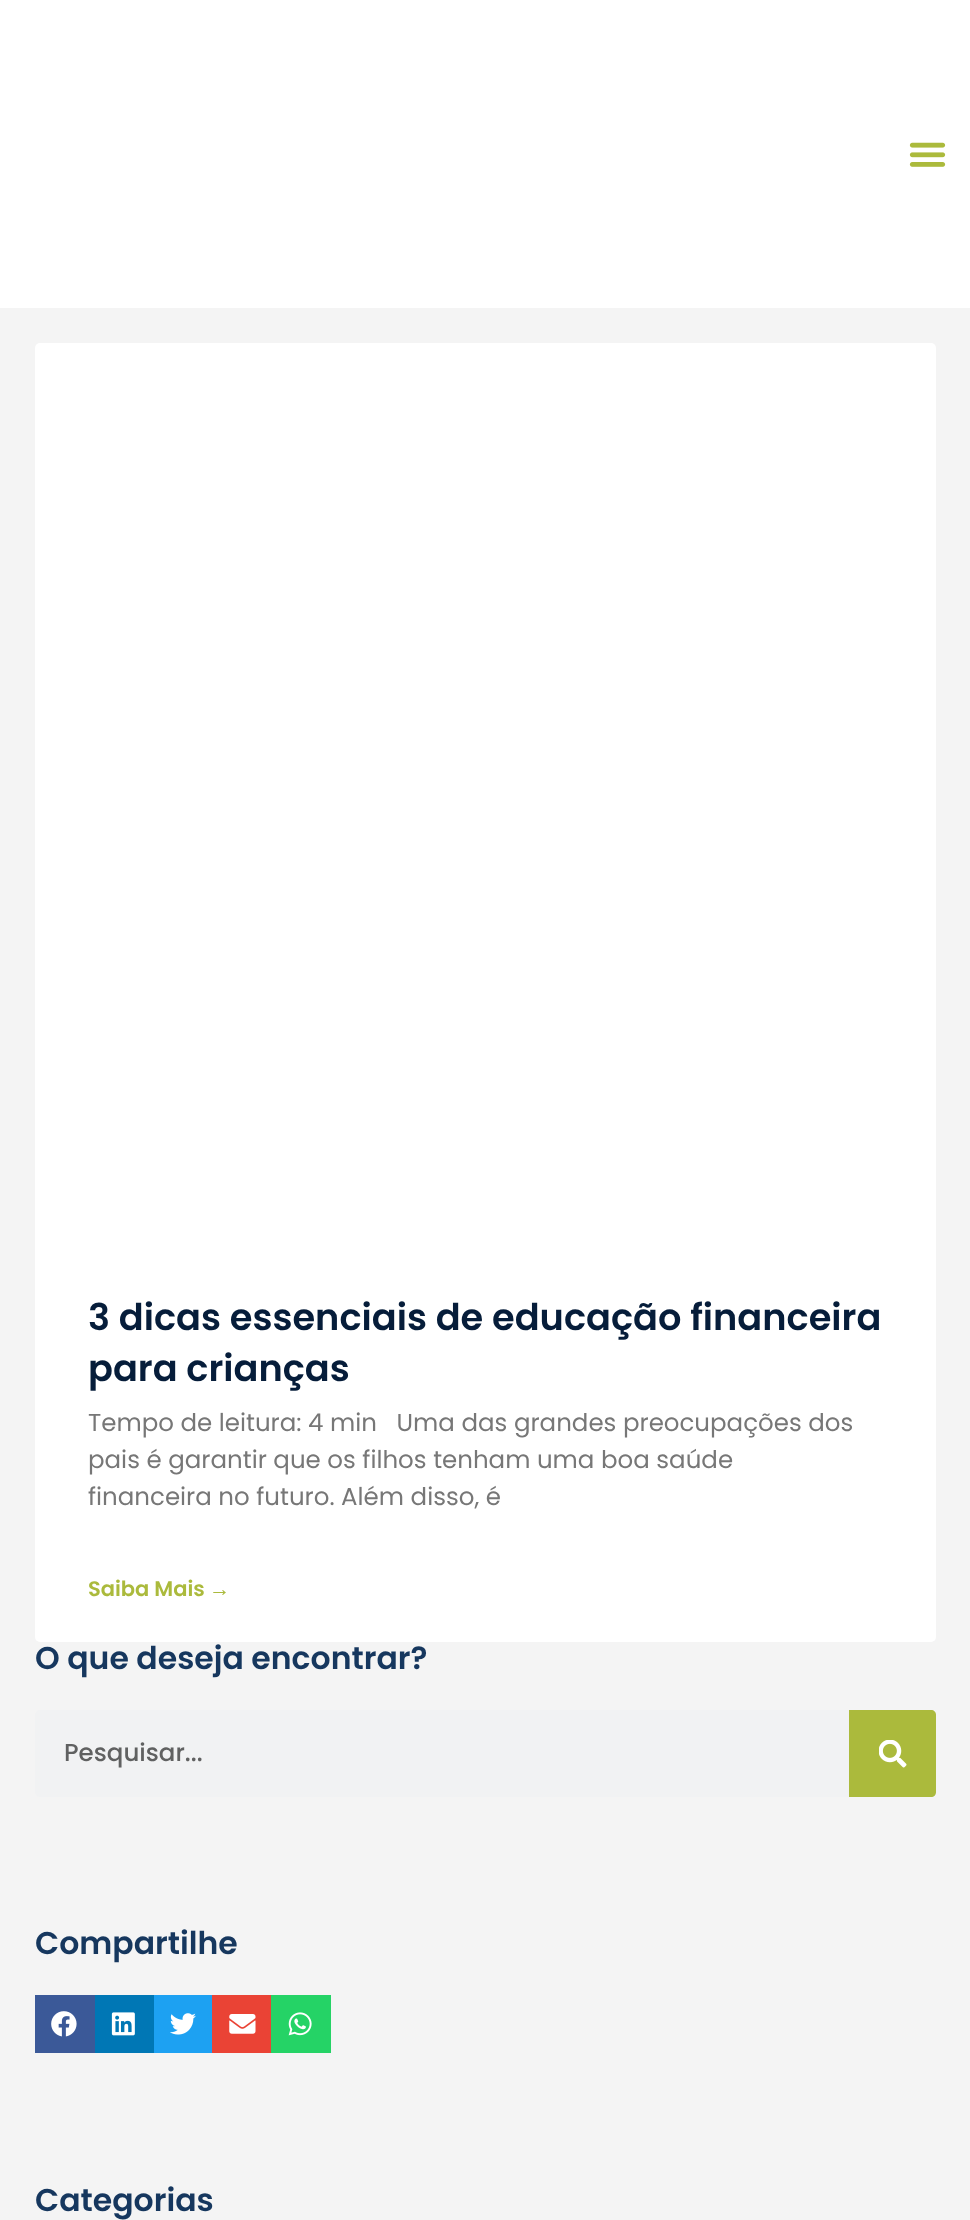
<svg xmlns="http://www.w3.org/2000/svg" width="970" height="2220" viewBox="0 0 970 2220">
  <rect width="100%" height="100%" fill="#ffffff"/>
  <image x="909" y="142" width="37" height="25" href="img1.png"/>
  <rect x="0" y="308" width="970" height="1912" fill="#f4f4f4"/>
  <rect x="35" y="343" width="901" height="1299" rx="5" fill="#ffffff"/>
  <text x="88" y="1330" font-family="Poppins" font-size="36.75" font-weight="600" fill="#061d3a">3 dicas essenciais de educação financeira</text>
  <text x="88" y="1381" font-family="Poppins" font-size="36.75" font-weight="600" fill="#061d3a">para crianças</text>
  <text x="88" y="1431" font-family="Poppins" font-size="24.5" fill="#777777" xml:space="preserve">Tempo de leitura: 4 min   Uma das grandes preocupações dos</text>
  <text x="88" y="1468" font-family="Poppins" font-size="24.5" fill="#777777">pais é garantir que os filhos tenham uma boa saúde</text>
  <text x="88" y="1505" font-family="Poppins" font-size="24.5" fill="#777777">financeira no futuro. Além disso, é</text>
  <text x="88" y="1596" font-family="Poppins" font-size="21" font-weight="600" fill="#abba3c">Saiba Mais</text>
  <text x="209" y="1596" font-family="Liberation Sans" font-size="21" font-weight="bold" fill="#abba3c">→</text>
  <text x="35" y="1669" font-family="Poppins" font-size="31.5" font-weight="600" fill="#16375e">O que deseja encontrar?</text>
  <rect x="35" y="1710" width="901" height="87" rx="5" fill="#f1f2f3"/>
  <text x="64" y="1761" font-family="Poppins" font-size="24.5" font-weight="500" fill="#606161">Pesquisar...</text>
  <path d="M849 1710H931C934 1710 936 1712 936 1715V1792C936 1795 934 1797 931 1797H849Z" fill="#abba3c"/>
  <image x="879" y="1740" width="28" height="28" href="img2.png"/>
  <text x="35" y="1954" font-family="Poppins" font-size="31.5" font-weight="600" fill="#16375e">Compartilhe</text>
  <rect x="35" y="1995" width="60" height="58" fill="#3b5998"/>
  <image x="51" y="2011" width="26" height="26" href="img3.png"/>
  <rect x="95" y="1995" width="59" height="58" fill="#0077b5"/>
  <image x="111" y="2012" width="24" height="24" href="img4.png"/>
  <rect x="154" y="1995" width="58" height="58" fill="#1da1f2"/>
  <image x="170" y="2013" width="26" height="22" href="img5.png"/>
  <rect x="212" y="1995" width="59" height="58" fill="#ea4335"/>
  <image x="229" y="2014" width="27" height="20" href="img6.png"/>
  <rect x="271" y="1995" width="60" height="58" fill="#25d366"/>
  <image x="288" y="2012" width="24" height="24" href="img7.png"/>
  <text x="35" y="2211" font-family="Poppins" font-size="31.5" font-weight="600" fill="#16375e">Categorias</text>
</svg>
